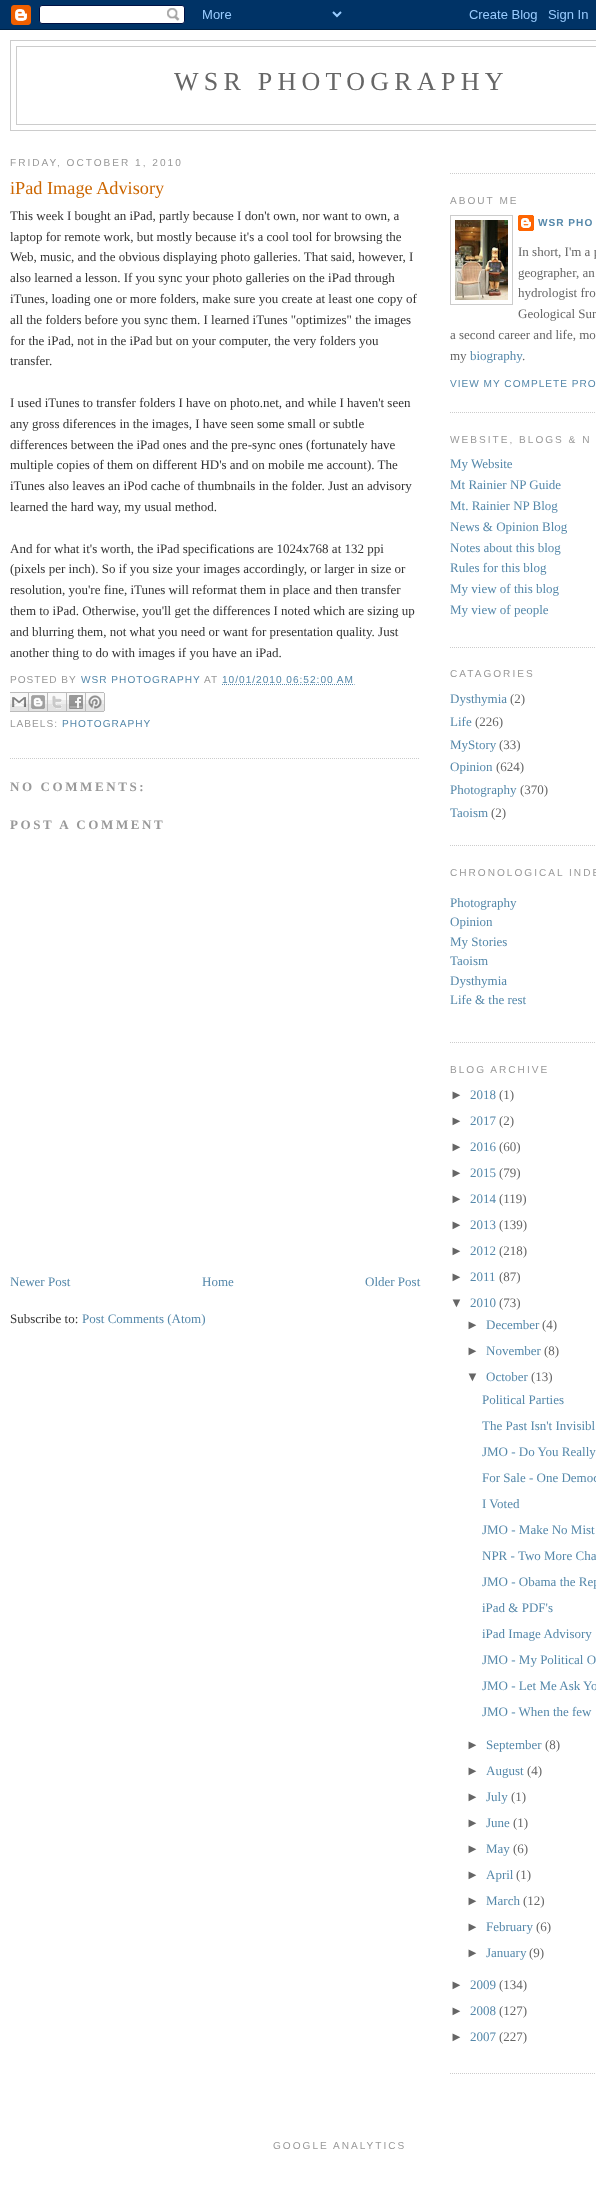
<svg xmlns="http://www.w3.org/2000/svg" width="596" height="2186" viewBox="0 0 596 2186">
  <rect width="100%" height="100%" fill="#ffffff"/>
  <image x="0" y="0" width="596" height="30" href="img1.png"/>
  <rect x="10.5" y="40.5" width="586" height="90" fill="none" stroke="#cccccc"/>
  <rect x="16.5" y="46.5" width="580" height="78" fill="none" stroke="#cccccc"/>
  <text x="174" y="90" font-family="Liberation Serif" font-size="26" letter-spacing="5.25" fill="#666666">WSR PHOTOGRAPHY</text>
  <text x="10" y="166" font-family="Liberation Sans" font-size="10.1" letter-spacing="2" fill="#999999">FRIDAY, OCTOBER 1, 2010</text>
  <path d="M10 758.5H420" fill="none" stroke="#cccccc" stroke-dasharray="1 1"/>
  <text x="10" y="194" font-family="Liberation Serif" font-size="18.25" fill="#cc6600">iPad Image Advisory</text>
  <text x="10" y="220" font-family="Liberation Serif" font-size="13" fill="#333333">This week I bought an iPad, partly because I don't own, nor want to own, a</text>
  <text x="10" y="241" font-family="Liberation Serif" font-size="13" fill="#333333">laptop for remote work, but mostly because it's a cool tool for browsing the</text>
  <text x="10" y="261" font-family="Liberation Serif" font-size="13" fill="#333333">Web, music, and the obvious displaying photo galleries. That said, however, I</text>
  <text x="10" y="282" font-family="Liberation Serif" font-size="13" fill="#333333">also learned a lesson. If you sync your photo galleries on the iPad through</text>
  <text x="10" y="303" font-family="Liberation Serif" font-size="13" fill="#333333">iTunes, loading one or more folders, make sure you create at least one copy of</text>
  <text x="10" y="324" font-family="Liberation Serif" font-size="13" fill="#333333">all the folders before you sync them. I learned iTunes "optimizes" the images</text>
  <text x="10" y="345" font-family="Liberation Serif" font-size="13" fill="#333333">for the iPad, not in the iPad but on your computer, the very folders you</text>
  <text x="10" y="365" font-family="Liberation Serif" font-size="13" fill="#333333">transfer.</text>
  <text x="10" y="407" font-family="Liberation Serif" font-size="13" fill="#333333">I used iTunes to transfer folders I have on photo.net, and while I haven't seen</text>
  <text x="10" y="428" font-family="Liberation Serif" font-size="13" fill="#333333">any gross diferences in the images, I have seen some small or subtle</text>
  <text x="10" y="449" font-family="Liberation Serif" font-size="13" fill="#333333">differences between the iPad ones and the pre-sync ones (fortunately have</text>
  <text x="10" y="469" font-family="Liberation Serif" font-size="13" fill="#333333">multiple copies of them on different HD's and on mobile me account). The</text>
  <text x="10" y="490" font-family="Liberation Serif" font-size="13" fill="#333333">iTunes also leaves an iPod cache of thumbnails in the folder. Just an advisory</text>
  <text x="10" y="511" font-family="Liberation Serif" font-size="13" fill="#333333">learned the hard way, my usual method.</text>
  <text x="10" y="553" font-family="Liberation Serif" font-size="13" fill="#333333">And for what it's worth, the iPad specifications are 1024x768 at 132 ppi</text>
  <text x="10" y="573" font-family="Liberation Serif" font-size="13" fill="#333333">(pixels per inch). So if you size your images accordingly, or larger in size or</text>
  <text x="10" y="594" font-family="Liberation Serif" font-size="13" fill="#333333">resolution, you're fine, iTunes will reformat them in place and then transfer</text>
  <text x="10" y="615" font-family="Liberation Serif" font-size="13" fill="#333333">them to iPad. Otherwise, you'll get the differences I noted which are sizing up</text>
  <text x="10" y="636" font-family="Liberation Serif" font-size="13" fill="#333333">and blurring them, not what you need or want for presentation quality. Just</text>
  <text x="10" y="657" font-family="Liberation Serif" font-size="13" fill="#333333">another thing to do with images if you have an iPad.</text>
  <text x="10" y="683" font-family="Liberation Sans" font-size="10.1" letter-spacing="1" fill="#999999">POSTED BY</text>
  <text x="81" y="683" font-family="Liberation Sans" font-size="10.1" letter-spacing="1" fill="#5588aa">WSR PHOTOGRAPHY</text>
  <text x="204" y="683" font-family="Liberation Sans" font-size="10.1" letter-spacing="1" fill="#999999">AT</text>
  <text x="222" y="683" font-family="Liberation Sans" font-size="10.1" letter-spacing="1" fill="#5588aa">10/01/2010 06:52:00 AM</text>
  <path d="M222 684.5H354.5" fill="none" stroke="#5588aa" stroke-dasharray="1 1"/>
  <image x="10" y="692" width="19" height="20" href="img2.png"/>
  <image x="29" y="692" width="19" height="20" href="img3.png"/>
  <image x="48" y="692" width="19" height="20" href="img4.png"/>
  <image x="67" y="692" width="19" height="20" href="img5.png"/>
  <image x="86" y="692" width="19" height="20" href="img6.png"/>
  <text x="10" y="727" font-family="Liberation Sans" font-size="10.1" letter-spacing="1" fill="#999999">LABELS:</text>
  <text x="62" y="727" font-family="Liberation Sans" font-size="10.1" letter-spacing="1" fill="#5588aa">PHOTOGRAPHY</text>
  <text x="10" y="791" font-family="Liberation Serif" font-size="13" font-weight="bold" letter-spacing="2.6" fill="#999999">NO COMMENTS:</text>
  <text x="10" y="829" font-family="Liberation Serif" font-size="13" font-weight="bold" letter-spacing="2.6" fill="#999999">POST A COMMENT</text>
  <text x="10" y="1286" font-family="Liberation Serif" font-size="13" fill="#5588aa">Newer Post</text>
  <text x="202" y="1286" font-family="Liberation Serif" font-size="13" fill="#5588aa">Home</text>
  <text x="365" y="1286" font-family="Liberation Serif" font-size="13" fill="#5588aa">Older Post</text>
  <text x="10" y="1323" font-family="Liberation Serif" font-size="13" fill="#333333">Subscribe to:</text>
  <text x="82" y="1323" font-family="Liberation Serif" font-size="13" fill="#5588aa">Post Comments (Atom)</text>
  <path d="M450 173.5H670" fill="none" stroke="#cccccc" stroke-dasharray="1 1"/>
  <path d="M450 412.5H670" fill="none" stroke="#cccccc" stroke-dasharray="1 1"/>
  <text x="450" y="204" font-family="Liberation Sans" font-size="10.1" letter-spacing="2" fill="#999999">ABOUT ME</text>
  <rect x="450.5" y="215.5" width="62" height="89" fill="none" stroke="#cccccc"/>
  <image x="455" y="220" width="53" height="80" href="img7.png"/>
  <image x="518" y="215" width="16" height="16" href="img8.png"/>
  <text x="538" y="226" font-family="Liberation Sans" font-size="10.1" font-weight="bold" letter-spacing="1" fill="#5588aa">WSR PHO</text>
  <text x="518" y="256" font-family="Liberation Serif" font-size="13" fill="#666666">In short, I'm a p</text>
  <text x="518" y="277" font-family="Liberation Serif" font-size="13" fill="#666666">geographer, an</text>
  <text x="518" y="297" font-family="Liberation Serif" font-size="13" fill="#666666">hydrologist fro</text>
  <text x="518" y="318" font-family="Liberation Serif" font-size="13" fill="#666666">Geological Sur</text>
  <text x="450" y="339" font-family="Liberation Serif" font-size="13" fill="#666666">a second career and life, mo</text>
  <text x="450" y="360" font-family="Liberation Serif" font-size="13" fill="#666666">my</text>
  <text x="470" y="360" font-family="Liberation Serif" font-size="13" fill="#5588aa">biography</text>
  <text x="522" y="360" font-family="Liberation Serif" font-size="13" fill="#666666">.</text>
  <text x="450" y="387" font-family="Liberation Sans" font-size="10.1" letter-spacing="1" fill="#5588aa">VIEW MY COMPLETE PRO</text>
  <path d="M450 647.5H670" fill="none" stroke="#cccccc" stroke-dasharray="1 1"/>
  <text x="450" y="443" font-family="Liberation Sans" font-size="10.1" letter-spacing="2" fill="#999999">WEBSITE, BLOGS &amp; N</text>
  <text x="450" y="468" font-family="Liberation Serif" font-size="13" fill="#5588aa">My Website</text>
  <text x="450" y="489" font-family="Liberation Serif" font-size="13" fill="#5588aa">Mt Rainier NP Guide</text>
  <text x="450" y="510" font-family="Liberation Serif" font-size="13" fill="#5588aa">Mt. Rainier NP Blog</text>
  <text x="450" y="531" font-family="Liberation Serif" font-size="13" fill="#5588aa">News &amp; Opinion Blog</text>
  <text x="450" y="552" font-family="Liberation Serif" font-size="13" fill="#5588aa">Notes about this blog</text>
  <text x="450" y="572" font-family="Liberation Serif" font-size="13" fill="#5588aa">Rules for this blog</text>
  <text x="450" y="593" font-family="Liberation Serif" font-size="13" fill="#5588aa">My view of this blog</text>
  <text x="450" y="614" font-family="Liberation Serif" font-size="13" fill="#5588aa">My view of people</text>
  <path d="M450 845.5H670" fill="none" stroke="#cccccc" stroke-dasharray="1 1"/>
  <text x="450" y="677" font-family="Liberation Sans" font-size="10.1" letter-spacing="2" fill="#999999">CATAGORIES</text>
  <text x="450" y="703" font-family="Liberation Serif" font-size="13" fill="#5588aa">Dysthymia</text>
  <text x="510" y="703" font-family="Liberation Serif" font-size="13" fill="#666666">(2)</text>
  <text x="450" y="726" font-family="Liberation Serif" font-size="13" fill="#5588aa">Life</text>
  <text x="475" y="726" font-family="Liberation Serif" font-size="13" fill="#666666">(226)</text>
  <text x="450" y="749" font-family="Liberation Serif" font-size="13" fill="#5588aa">MyStory</text>
  <text x="499" y="749" font-family="Liberation Serif" font-size="13" fill="#666666">(33)</text>
  <text x="450" y="771" font-family="Liberation Serif" font-size="13" fill="#5588aa">Opinion</text>
  <text x="496" y="771" font-family="Liberation Serif" font-size="13" fill="#666666">(624)</text>
  <text x="450" y="794" font-family="Liberation Serif" font-size="13" fill="#5588aa">Photography</text>
  <text x="520" y="794" font-family="Liberation Serif" font-size="13" fill="#666666">(370)</text>
  <text x="450" y="817" font-family="Liberation Serif" font-size="13" fill="#5588aa">Taoism</text>
  <text x="491" y="817" font-family="Liberation Serif" font-size="13" fill="#666666">(2)</text>
  <path d="M450 1042.5H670" fill="none" stroke="#cccccc" stroke-dasharray="1 1"/>
  <text x="450" y="876" font-family="Liberation Sans" font-size="10.1" letter-spacing="2" fill="#999999">CHRONOLOGICAL INDE</text>
  <text x="450" y="907" font-family="Liberation Serif" font-size="13" fill="#5588aa">Photography</text>
  <text x="450" y="926" font-family="Liberation Serif" font-size="13" fill="#5588aa">Opinion</text>
  <text x="450" y="946" font-family="Liberation Serif" font-size="13" fill="#5588aa">My Stories</text>
  <text x="450" y="965" font-family="Liberation Serif" font-size="13" fill="#5588aa">Taoism</text>
  <text x="450" y="985" font-family="Liberation Serif" font-size="13" fill="#5588aa">Dysthymia</text>
  <text x="450" y="1004" font-family="Liberation Serif" font-size="13" fill="#5588aa">Life &amp; the rest</text>
  <path d="M450 2073.5H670" fill="none" stroke="#cccccc" stroke-dasharray="1 1"/>
  <text x="450" y="1073" font-family="Liberation Sans" font-size="10.1" letter-spacing="2" fill="#999999">BLOG ARCHIVE</text>
  <text x="450" y="1099" font-family="Liberation Sans" font-size="13" fill="#666666">►</text>
  <text x="470" y="1099" font-family="Liberation Serif" font-size="13" fill="#5588aa">2018</text>
  <text x="499" y="1099" font-family="Liberation Serif" font-size="13" fill="#666666">(1)</text>
  <text x="450" y="1125" font-family="Liberation Sans" font-size="13" fill="#666666">►</text>
  <text x="470" y="1125" font-family="Liberation Serif" font-size="13" fill="#5588aa">2017</text>
  <text x="499" y="1125" font-family="Liberation Serif" font-size="13" fill="#666666">(2)</text>
  <text x="450" y="1151" font-family="Liberation Sans" font-size="13" fill="#666666">►</text>
  <text x="470" y="1151" font-family="Liberation Serif" font-size="13" fill="#5588aa">2016</text>
  <text x="499" y="1151" font-family="Liberation Serif" font-size="13" fill="#666666">(60)</text>
  <text x="450" y="1177" font-family="Liberation Sans" font-size="13" fill="#666666">►</text>
  <text x="470" y="1177" font-family="Liberation Serif" font-size="13" fill="#5588aa">2015</text>
  <text x="499" y="1177" font-family="Liberation Serif" font-size="13" fill="#666666">(79)</text>
  <text x="450" y="1203" font-family="Liberation Sans" font-size="13" fill="#666666">►</text>
  <text x="470" y="1203" font-family="Liberation Serif" font-size="13" fill="#5588aa">2014</text>
  <text x="499" y="1203" font-family="Liberation Serif" font-size="13" fill="#666666">(119)</text>
  <text x="450" y="1229" font-family="Liberation Sans" font-size="13" fill="#666666">►</text>
  <text x="470" y="1229" font-family="Liberation Serif" font-size="13" fill="#5588aa">2013</text>
  <text x="499" y="1229" font-family="Liberation Serif" font-size="13" fill="#666666">(139)</text>
  <text x="450" y="1255" font-family="Liberation Sans" font-size="13" fill="#666666">►</text>
  <text x="470" y="1255" font-family="Liberation Serif" font-size="13" fill="#5588aa">2012</text>
  <text x="499" y="1255" font-family="Liberation Serif" font-size="13" fill="#666666">(218)</text>
  <text x="450" y="1281" font-family="Liberation Sans" font-size="13" fill="#666666">►</text>
  <text x="470" y="1281" font-family="Liberation Serif" font-size="13" fill="#5588aa">2011</text>
  <text x="499" y="1281" font-family="Liberation Serif" font-size="13" fill="#666666">(87)</text>
  <text x="450" y="1307" font-family="Liberation Sans" font-size="13" fill="#666666">▼</text>
  <text x="470" y="1307" font-family="Liberation Serif" font-size="13" fill="#5588aa">2010</text>
  <text x="499" y="1307" font-family="Liberation Serif" font-size="13" fill="#666666">(73)</text>
  <text x="466" y="1329" font-family="Liberation Sans" font-size="13" fill="#666666">►</text>
  <text x="486" y="1329" font-family="Liberation Serif" font-size="13" fill="#5588aa">December</text>
  <text x="542" y="1329" font-family="Liberation Serif" font-size="13" fill="#666666">(4)</text>
  <text x="466" y="1355" font-family="Liberation Sans" font-size="13" fill="#666666">►</text>
  <text x="486" y="1355" font-family="Liberation Serif" font-size="13" fill="#5588aa">November</text>
  <text x="544" y="1355" font-family="Liberation Serif" font-size="13" fill="#666666">(8)</text>
  <text x="466" y="1381" font-family="Liberation Sans" font-size="13" fill="#666666">▼</text>
  <text x="486" y="1381" font-family="Liberation Serif" font-size="13" fill="#5588aa">October</text>
  <text x="531" y="1381" font-family="Liberation Serif" font-size="13" fill="#666666">(13)</text>
  <text x="482" y="1404" font-family="Liberation Serif" font-size="13" fill="#5588aa">Political Parties</text>
  <text x="482" y="1430" font-family="Liberation Serif" font-size="13" fill="#5588aa">The Past Isn't Invisibl</text>
  <text x="482" y="1456" font-family="Liberation Serif" font-size="13" fill="#5588aa">JMO - Do You Really</text>
  <text x="482" y="1482" font-family="Liberation Serif" font-size="13" fill="#5588aa">For Sale - One Democ</text>
  <text x="482" y="1508" font-family="Liberation Serif" font-size="13" fill="#5588aa">I Voted</text>
  <text x="482" y="1534" font-family="Liberation Serif" font-size="13" fill="#5588aa">JMO - Make No Mist</text>
  <text x="482" y="1560" font-family="Liberation Serif" font-size="13" fill="#5588aa">NPR - Two More Cha</text>
  <text x="482" y="1586" font-family="Liberation Serif" font-size="13" fill="#5588aa">JMO - Obama the Rep</text>
  <text x="482" y="1612" font-family="Liberation Serif" font-size="13" fill="#5588aa">iPad &amp; PDF's</text>
  <text x="482" y="1638" font-family="Liberation Serif" font-size="13" fill="#5588aa">iPad Image Advisory</text>
  <text x="482" y="1664" font-family="Liberation Serif" font-size="13" fill="#5588aa">JMO - My Political O</text>
  <text x="482" y="1690" font-family="Liberation Serif" font-size="13" fill="#5588aa">JMO - Let Me Ask Yo</text>
  <text x="482" y="1716" font-family="Liberation Serif" font-size="13" fill="#5588aa">JMO - When the few</text>
  <text x="466" y="1749" font-family="Liberation Sans" font-size="13" fill="#666666">►</text>
  <text x="486" y="1749" font-family="Liberation Serif" font-size="13" fill="#5588aa">September</text>
  <text x="545" y="1749" font-family="Liberation Serif" font-size="13" fill="#666666">(8)</text>
  <text x="466" y="1775" font-family="Liberation Sans" font-size="13" fill="#666666">►</text>
  <text x="486" y="1775" font-family="Liberation Serif" font-size="13" fill="#5588aa">August</text>
  <text x="527" y="1775" font-family="Liberation Serif" font-size="13" fill="#666666">(4)</text>
  <text x="466" y="1801" font-family="Liberation Sans" font-size="13" fill="#666666">►</text>
  <text x="486" y="1801" font-family="Liberation Serif" font-size="13" fill="#5588aa">July</text>
  <text x="511" y="1801" font-family="Liberation Serif" font-size="13" fill="#666666">(1)</text>
  <text x="466" y="1827" font-family="Liberation Sans" font-size="13" fill="#666666">►</text>
  <text x="486" y="1827" font-family="Liberation Serif" font-size="13" fill="#5588aa">June</text>
  <text x="513" y="1827" font-family="Liberation Serif" font-size="13" fill="#666666">(1)</text>
  <text x="466" y="1853" font-family="Liberation Sans" font-size="13" fill="#666666">►</text>
  <text x="486" y="1853" font-family="Liberation Serif" font-size="13" fill="#5588aa">May</text>
  <text x="513" y="1853" font-family="Liberation Serif" font-size="13" fill="#666666">(6)</text>
  <text x="466" y="1879" font-family="Liberation Sans" font-size="13" fill="#666666">►</text>
  <text x="486" y="1879" font-family="Liberation Serif" font-size="13" fill="#5588aa">April</text>
  <text x="516" y="1879" font-family="Liberation Serif" font-size="13" fill="#666666">(1)</text>
  <text x="466" y="1905" font-family="Liberation Sans" font-size="13" fill="#666666">►</text>
  <text x="486" y="1905" font-family="Liberation Serif" font-size="13" fill="#5588aa">March</text>
  <text x="523" y="1905" font-family="Liberation Serif" font-size="13" fill="#666666">(12)</text>
  <text x="466" y="1931" font-family="Liberation Sans" font-size="13" fill="#666666">►</text>
  <text x="486" y="1931" font-family="Liberation Serif" font-size="13" fill="#5588aa">February</text>
  <text x="536" y="1931" font-family="Liberation Serif" font-size="13" fill="#666666">(6)</text>
  <text x="466" y="1957" font-family="Liberation Sans" font-size="13" fill="#666666">►</text>
  <text x="486" y="1957" font-family="Liberation Serif" font-size="13" fill="#5588aa">January</text>
  <text x="529" y="1957" font-family="Liberation Serif" font-size="13" fill="#666666">(9)</text>
  <text x="450" y="1989" font-family="Liberation Sans" font-size="13" fill="#666666">►</text>
  <text x="470" y="1989" font-family="Liberation Serif" font-size="13" fill="#5588aa">2009</text>
  <text x="499" y="1989" font-family="Liberation Serif" font-size="13" fill="#666666">(134)</text>
  <text x="450" y="2015" font-family="Liberation Sans" font-size="13" fill="#666666">►</text>
  <text x="470" y="2015" font-family="Liberation Serif" font-size="13" fill="#5588aa">2008</text>
  <text x="499" y="2015" font-family="Liberation Serif" font-size="13" fill="#666666">(127)</text>
  <text x="450" y="2041" font-family="Liberation Sans" font-size="13" fill="#666666">►</text>
  <text x="470" y="2041" font-family="Liberation Serif" font-size="13" fill="#5588aa">2007</text>
  <text x="499" y="2041" font-family="Liberation Serif" font-size="13" fill="#666666">(227)</text>
  <text x="273" y="2149" font-family="Liberation Sans" font-size="10.1" letter-spacing="2" fill="#999999">GOOGLE ANALYTICS</text>
</svg>
